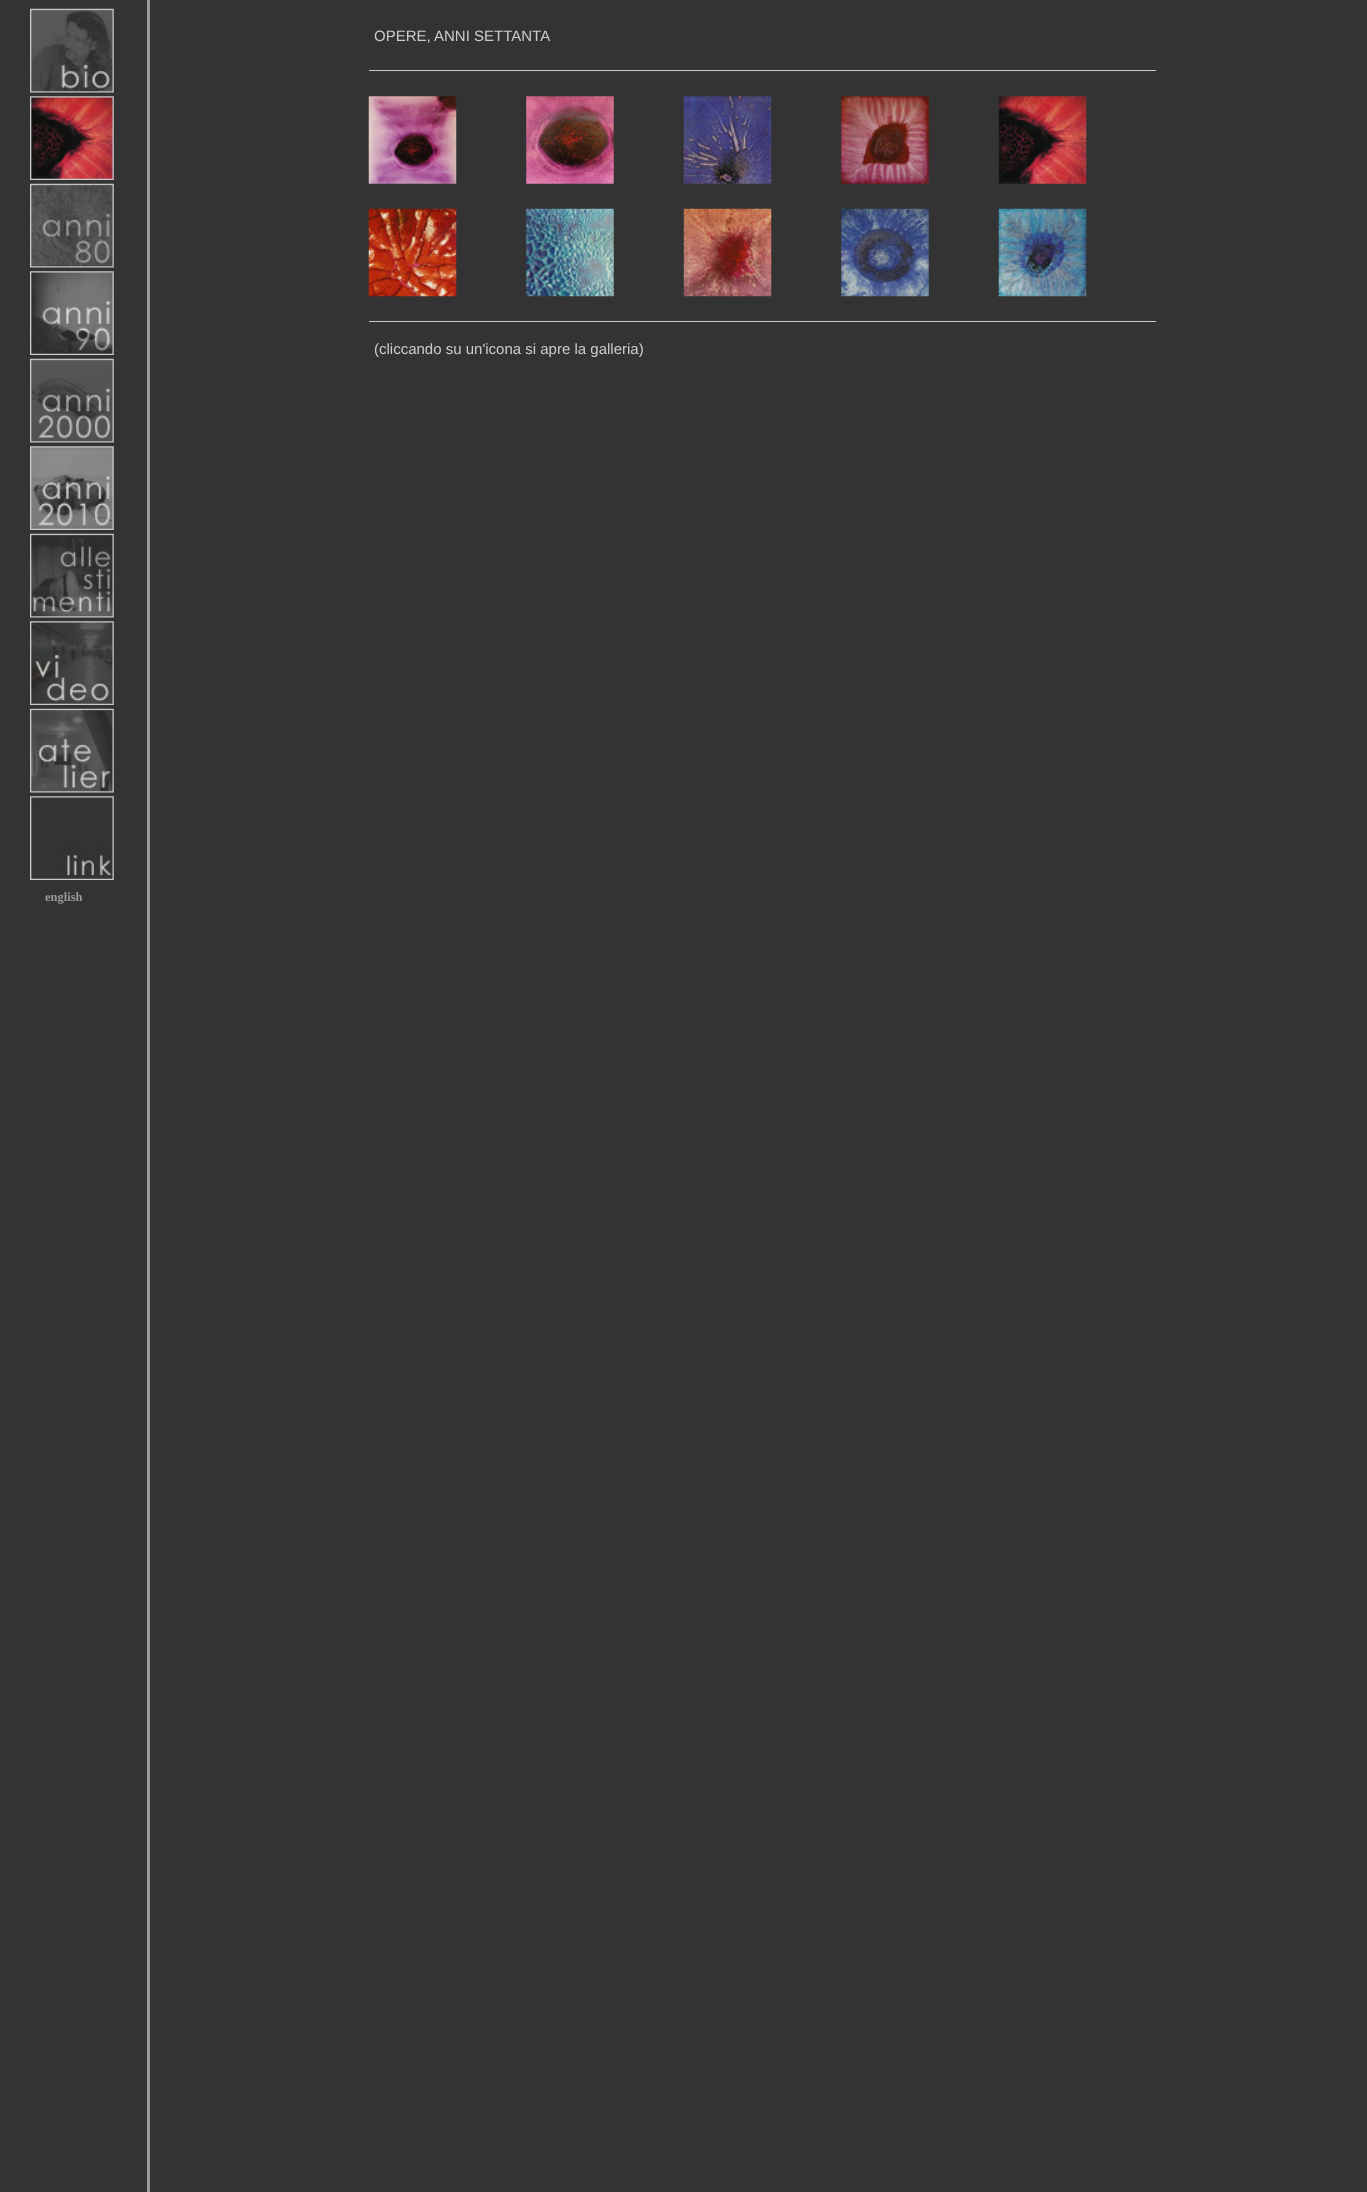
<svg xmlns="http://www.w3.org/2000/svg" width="1367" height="2192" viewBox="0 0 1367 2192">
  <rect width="100%" height="100%" fill="#333333"/>
  <rect x="147" y="0" width="3" height="2192" fill="#999999"/>
  <rect x="369" y="70" width="787" height="1" fill="#cccccc"/>
  <text x="374" y="41" font-family="Liberation Sans" font-size="15" fill="#cccccc">OPERE, ANNI SETTANTA</text>
  <image x="368" y="96" width="89" height="88" href="img1.png"/>
  <image x="526" y="96" width="88" height="88" href="img2.png"/>
  <image x="683" y="96" width="89" height="88" href="img3.png"/>
  <image x="841" y="96" width="88" height="88" href="img4.png"/>
  <image x="998" y="96" width="89" height="88" href="img5.png"/>
  <image x="368" y="208" width="89" height="89" href="img6.png"/>
  <image x="526" y="208" width="88" height="89" href="img7.png"/>
  <image x="683" y="208" width="89" height="89" href="img8.png"/>
  <image x="841" y="208" width="88" height="89" href="img9.png"/>
  <image x="998" y="208" width="89" height="89" href="img10.png"/>
  <rect x="369" y="321" width="787" height="1" fill="#cccccc"/>
  <text x="374" y="354" font-family="Liberation Sans" font-size="15" fill="#cccccc">(cliccando su un'icona si apre la galleria)</text>
  <image x="30" y="8" width="84" height="85" href="img11.png"/>
  <image x="30" y="96" width="84" height="84" href="img12.png"/>
  <image x="30" y="183" width="84" height="85" href="img13.png"/>
  <image x="30" y="271" width="84" height="84" href="img14.png"/>
  <image x="30" y="358" width="84" height="85" href="img15.png"/>
  <image x="30" y="446" width="84" height="84" href="img16.png"/>
  <image x="30" y="533" width="84" height="85" href="img17.png"/>
  <image x="30" y="621" width="84" height="84" href="img18.png"/>
  <image x="30" y="708" width="84" height="85" href="img19.png"/>
  <image x="30" y="796" width="84" height="84" href="img20.png"/>
  <text x="45" y="901" font-family="Liberation Serif" font-size="12.5" font-weight="bold" fill="#999999">english</text>
</svg>
